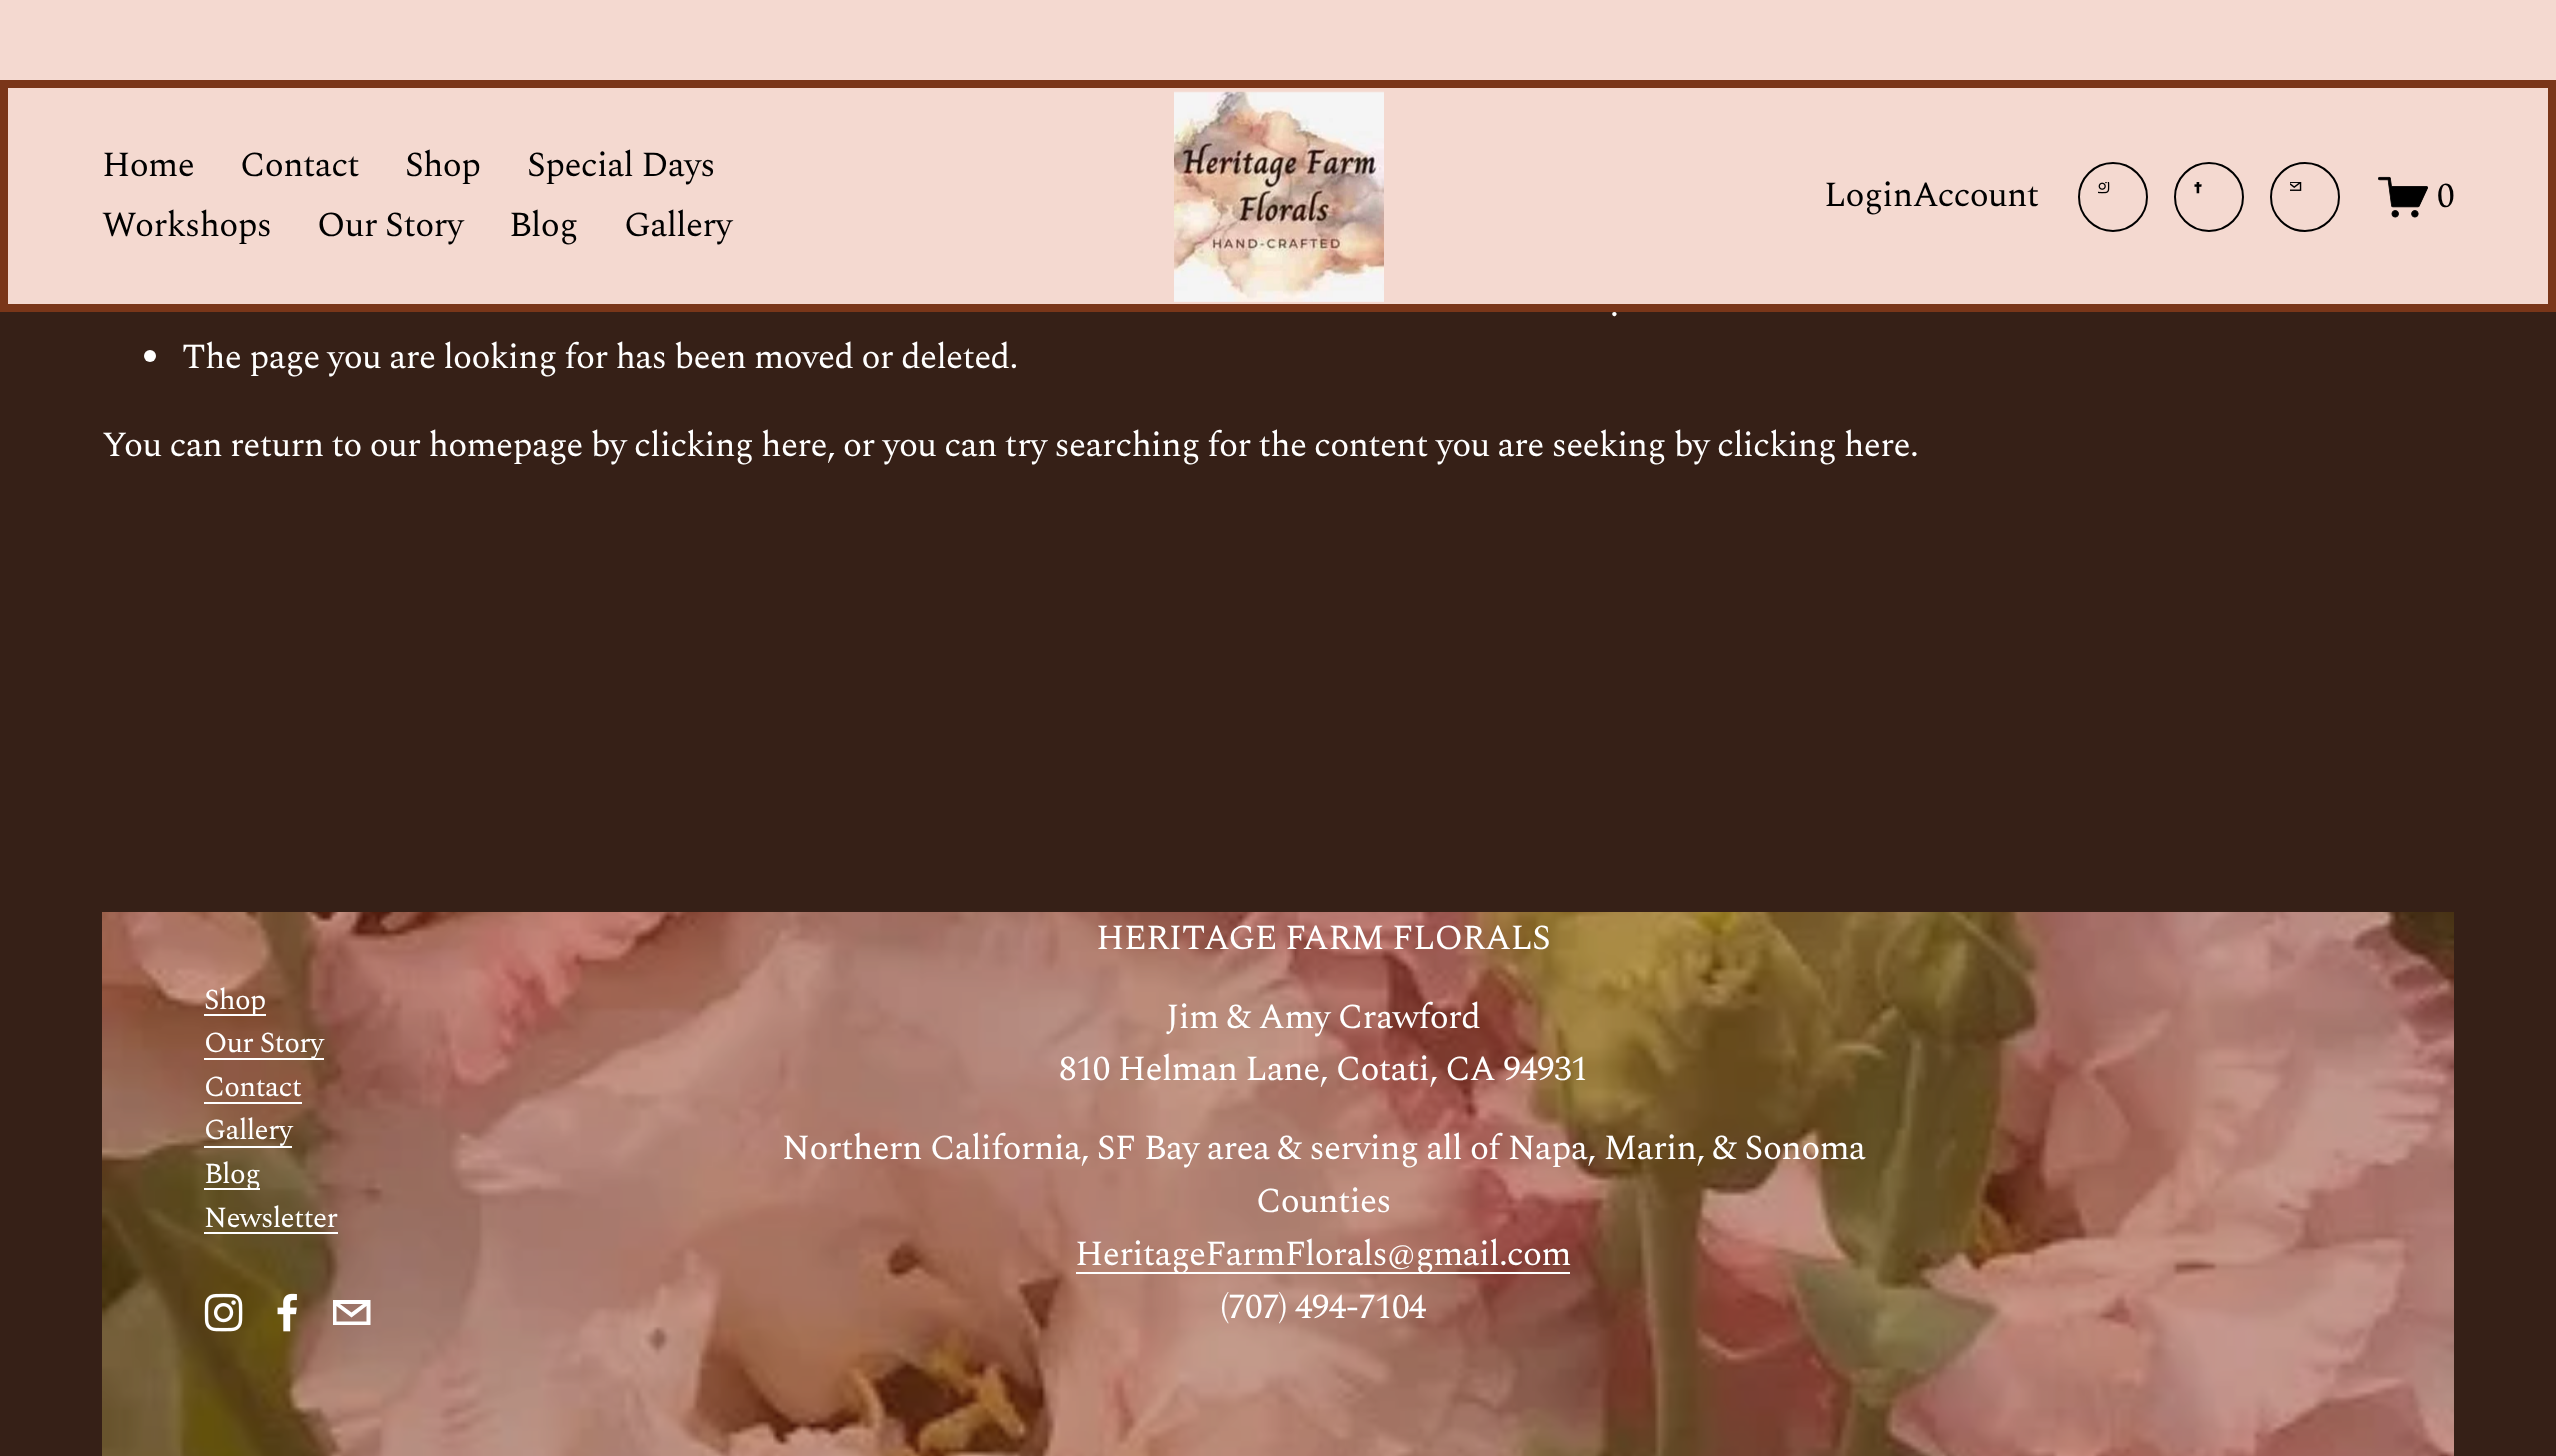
<svg xmlns="http://www.w3.org/2000/svg" width="2556" height="1456" viewBox="0 0 2556 1456">
  <rect width="100%" height="100%" fill="#362017"/>
  <rect x="0" y="0" width="2556" height="304" fill="#f4d9d0"/>
  <text x="1610" y="316" font-family="Spectral" font-size="35.2" letter-spacing="-0.7" fill="#ffffff">.</text>
  <rect x="4" y="84" width="2548" height="224" fill="none" stroke="#7a3619" stroke-width="8"/>
  <text x="102" y="176" font-family="Spectral" font-size="35.2" letter-spacing="-0.7" fill="#000000">Home</text>
  <text x="240" y="176" font-family="Spectral" font-size="35.2" letter-spacing="-0.7" fill="#000000">Contact</text>
  <text x="405" y="176" font-family="Spectral" font-size="35.2" letter-spacing="-0.7" fill="#000000">Shop</text>
  <text x="527" y="176" font-family="Spectral" font-size="35.2" letter-spacing="-0.7" fill="#000000">Special Days</text>
  <text x="102" y="236" font-family="Spectral" font-size="35.2" letter-spacing="-0.7" fill="#000000">Workshops</text>
  <text x="317" y="236" font-family="Spectral" font-size="35.2" letter-spacing="-0.7" fill="#000000">Our Story</text>
  <text x="509" y="236" font-family="Spectral" font-size="35.2" letter-spacing="-0.7" fill="#000000">Blog</text>
  <text x="624" y="236" font-family="Spectral" font-size="35.2" letter-spacing="-0.7" fill="#000000">Gallery</text>
  <image x="1174" y="91" width="210" height="211" href="img1.png"/>
  <text x="1824" y="206" font-family="Spectral" font-size="35.2" letter-spacing="-0.7" fill="#000000">LoginAccount</text>
  <circle cx="2113" cy="197" r="34" fill="none" stroke="#000000" stroke-width="2"/>
  <image x="2098" y="182" width="12" height="12" href="img2.png"/>
  <circle cx="2209" cy="197" r="34" fill="none" stroke="#000000" stroke-width="2"/>
  <image x="2194" y="182" width="8" height="12" href="img3.png"/>
  <circle cx="2305" cy="197" r="34" fill="none" stroke="#000000" stroke-width="2"/>
  <image x="2290" y="182" width="12" height="9" href="img4.png"/>
  <image x="2378" y="176" width="50" height="42" href="img5.png"/>
  <text x="2437" y="207" font-family="Spectral" font-size="35.2" letter-spacing="-0.7" fill="#000000">0</text>
  <circle cx="150" cy="356" r="6" fill="#ffffff"/>
  <text x="182" y="368" font-family="Spectral" font-size="35.2" letter-spacing="-0.7" fill="#ffffff">The page you are looking for has been moved or deleted.</text>
  <text x="102" y="456" font-family="Spectral" font-size="35.2" letter-spacing="-0.7" fill="#ffffff">You can return to our homepage by clicking here, or you can try searching for the</text>
  <text x="1314" y="456" font-family="Spectral" font-size="35.2" letter-spacing="-0.7" fill="#ffffff">content you are seeking by clicking here</text>
  <text x="1910" y="456" font-family="Spectral" font-size="35.2" letter-spacing="-0.7" fill="#ffffff">.</text>
  <image x="102" y="912" width="2352" height="544" href="img6.png"/>
  <rect x="204" y="1014" width="62" height="2" fill="#ffffff"/>
  <text x="204" y="1009" font-family="Spectral" font-size="29" letter-spacing="-0.7" fill="#ffffff">Shop</text>
  <rect x="204" y="1058" width="120" height="2" fill="#ffffff"/>
  <text x="204" y="1052" font-family="Spectral" font-size="29" letter-spacing="-0.7" fill="#ffffff">Our Story</text>
  <text x="204" y="1096" font-family="Spectral" font-size="29" letter-spacing="-0.7" fill="#ffffff">Contact</text>
  <rect x="204" y="1102" width="98" height="2" fill="#ffffff"/>
  <text x="204" y="1139" font-family="Spectral" font-size="29" letter-spacing="-0.7" fill="#ffffff">Gallery</text>
  <rect x="204" y="1146" width="88" height="2" fill="#ffffff"/>
  <rect x="204" y="1188" width="56" height="2" fill="#ffffff"/>
  <text x="204" y="1183" font-family="Spectral" font-size="29" letter-spacing="-0.7" fill="#ffffff">Blog</text>
  <text x="204" y="1227" font-family="Spectral" font-size="29" letter-spacing="-0.7" fill="#ffffff">Newsletter</text>
  <rect x="204" y="1232" width="134" height="2" fill="#ffffff"/>
  <text x="1096" y="949" font-family="Spectral" font-size="35.2" letter-spacing="-0.7" fill="#ffffff">HERITAGE FARM FLORALS</text>
  <text x="1166" y="1028" font-family="Spectral" font-size="35.2" letter-spacing="-0.7" fill="#ffffff">Jim &amp; Amy Crawford</text>
  <text x="1059" y="1080" font-family="Spectral" font-size="35.2" letter-spacing="-0.7" fill="#ffffff">810 Helman Lane, Cotati, CA 94931</text>
  <text x="782" y="1159" font-family="Spectral" font-size="35.2" letter-spacing="-0.7" fill="#ffffff">Northern California, SF Bay area &amp; serving all of Napa, Marin, &amp; Sonoma</text>
  <text x="1256" y="1212" font-family="Spectral" font-size="35.2" letter-spacing="-0.7" fill="#ffffff">Counties</text>
  <rect x="1076" y="1272" width="494" height="2" fill="#ffffff"/>
  <text x="1075" y="1265" font-family="Spectral" font-size="35.2" letter-spacing="-0.7" fill="#ffffff">HeritageFarmFlorals@gmail.com</text>
  <text x="1220" y="1318" font-family="Spectral" font-size="35.2" letter-spacing="-0.7" fill="#ffffff">(707) 494-7104</text>
  <image x="204" y="1293" width="39" height="39" href="img7.png"/>
  <image x="277" y="1293" width="20" height="39" href="img8.png"/>
  <path d="M333 1300V1325H370.5V1300ZM363 1304L351.5 1312.5L340 1304ZM336.5 1321.5V1306L351.5 1317.5L366.5 1306V1321.5Z" fill="#ffffff"/>
</svg>
